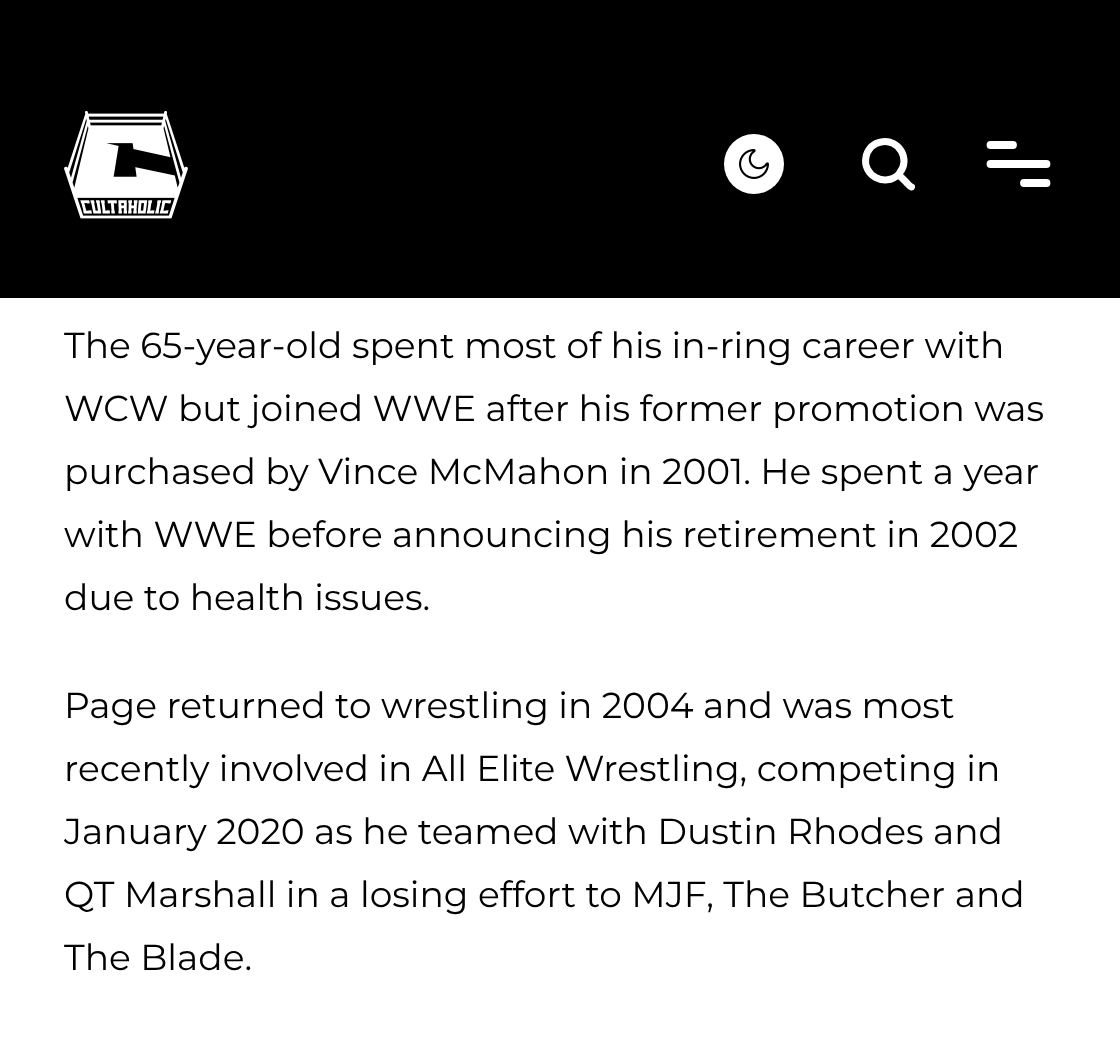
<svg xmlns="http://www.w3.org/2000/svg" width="1120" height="1039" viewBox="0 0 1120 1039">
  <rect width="100%" height="100%" fill="#ffffff"/>
  <rect x="0" y="0" width="1120" height="298" fill="#000000"/>
  <image x="64" y="111" width="124" height="108" href="img1.png"/>
  <circle cx="754" cy="164" r="30" fill="#ffffff"/>
  <image x="739" y="149" width="30" height="30" href="img2.png"/>
  <path d="M899 175L906 182C908 184 909 186 911.5 187M898.5 174.5C885.5 187.5 862 175.5 866 157C866.5 153.5 868.5 150 871 147C874 144.5 877.5 142.5 881 142C899 138.5 911 159.5 899.5 173" fill="none" stroke="#ffffff" stroke-width="7" stroke-linecap="round" stroke-linejoin="round"/>
  <path d="M990.5 145H1013" fill="none" stroke="#ffffff" stroke-width="7.8" stroke-linecap="round"/>
  <path d="M990.5 164H1046.5" fill="none" stroke="#ffffff" stroke-width="7.8" stroke-linecap="round"/>
  <path d="M1024 183H1046.5" fill="none" stroke="#ffffff" stroke-width="7.8" stroke-linecap="round"/>
  <text x="64" y="358" font-family="Montserrat" font-size="36" fill="#000000">The 65-year-old spent most of his in-ring career with</text>
  <text x="64" y="421" font-family="Montserrat" font-size="36" fill="#000000">WCW but joined WWE after his former promotion was</text>
  <text x="64" y="484" font-family="Montserrat" font-size="36" fill="#000000">purchased by Vince McMahon in 2001. He spent a year</text>
  <text x="64" y="547" font-family="Montserrat" font-size="36" fill="#000000">with WWE before announcing his retirement in 2002</text>
  <text x="64" y="610" font-family="Montserrat" font-size="36" fill="#000000">due to health issues.</text>
  <text x="64" y="718" font-family="Montserrat" font-size="36" fill="#000000">Page returned to wrestling in 2004 and was most</text>
  <text x="64" y="781" font-family="Montserrat" font-size="36" fill="#000000">recently involved in All Elite Wrestling, competing in</text>
  <text x="64" y="844" font-family="Montserrat" font-size="36" fill="#000000">January 2020 as he teamed with Dustin Rhodes and</text>
  <text x="64" y="907" font-family="Montserrat" font-size="36" fill="#000000">QT Marshall in a losing effort to MJF, The Butcher and</text>
  <text x="64" y="970" font-family="Montserrat" font-size="36" fill="#000000">The Blade.</text>
</svg>
